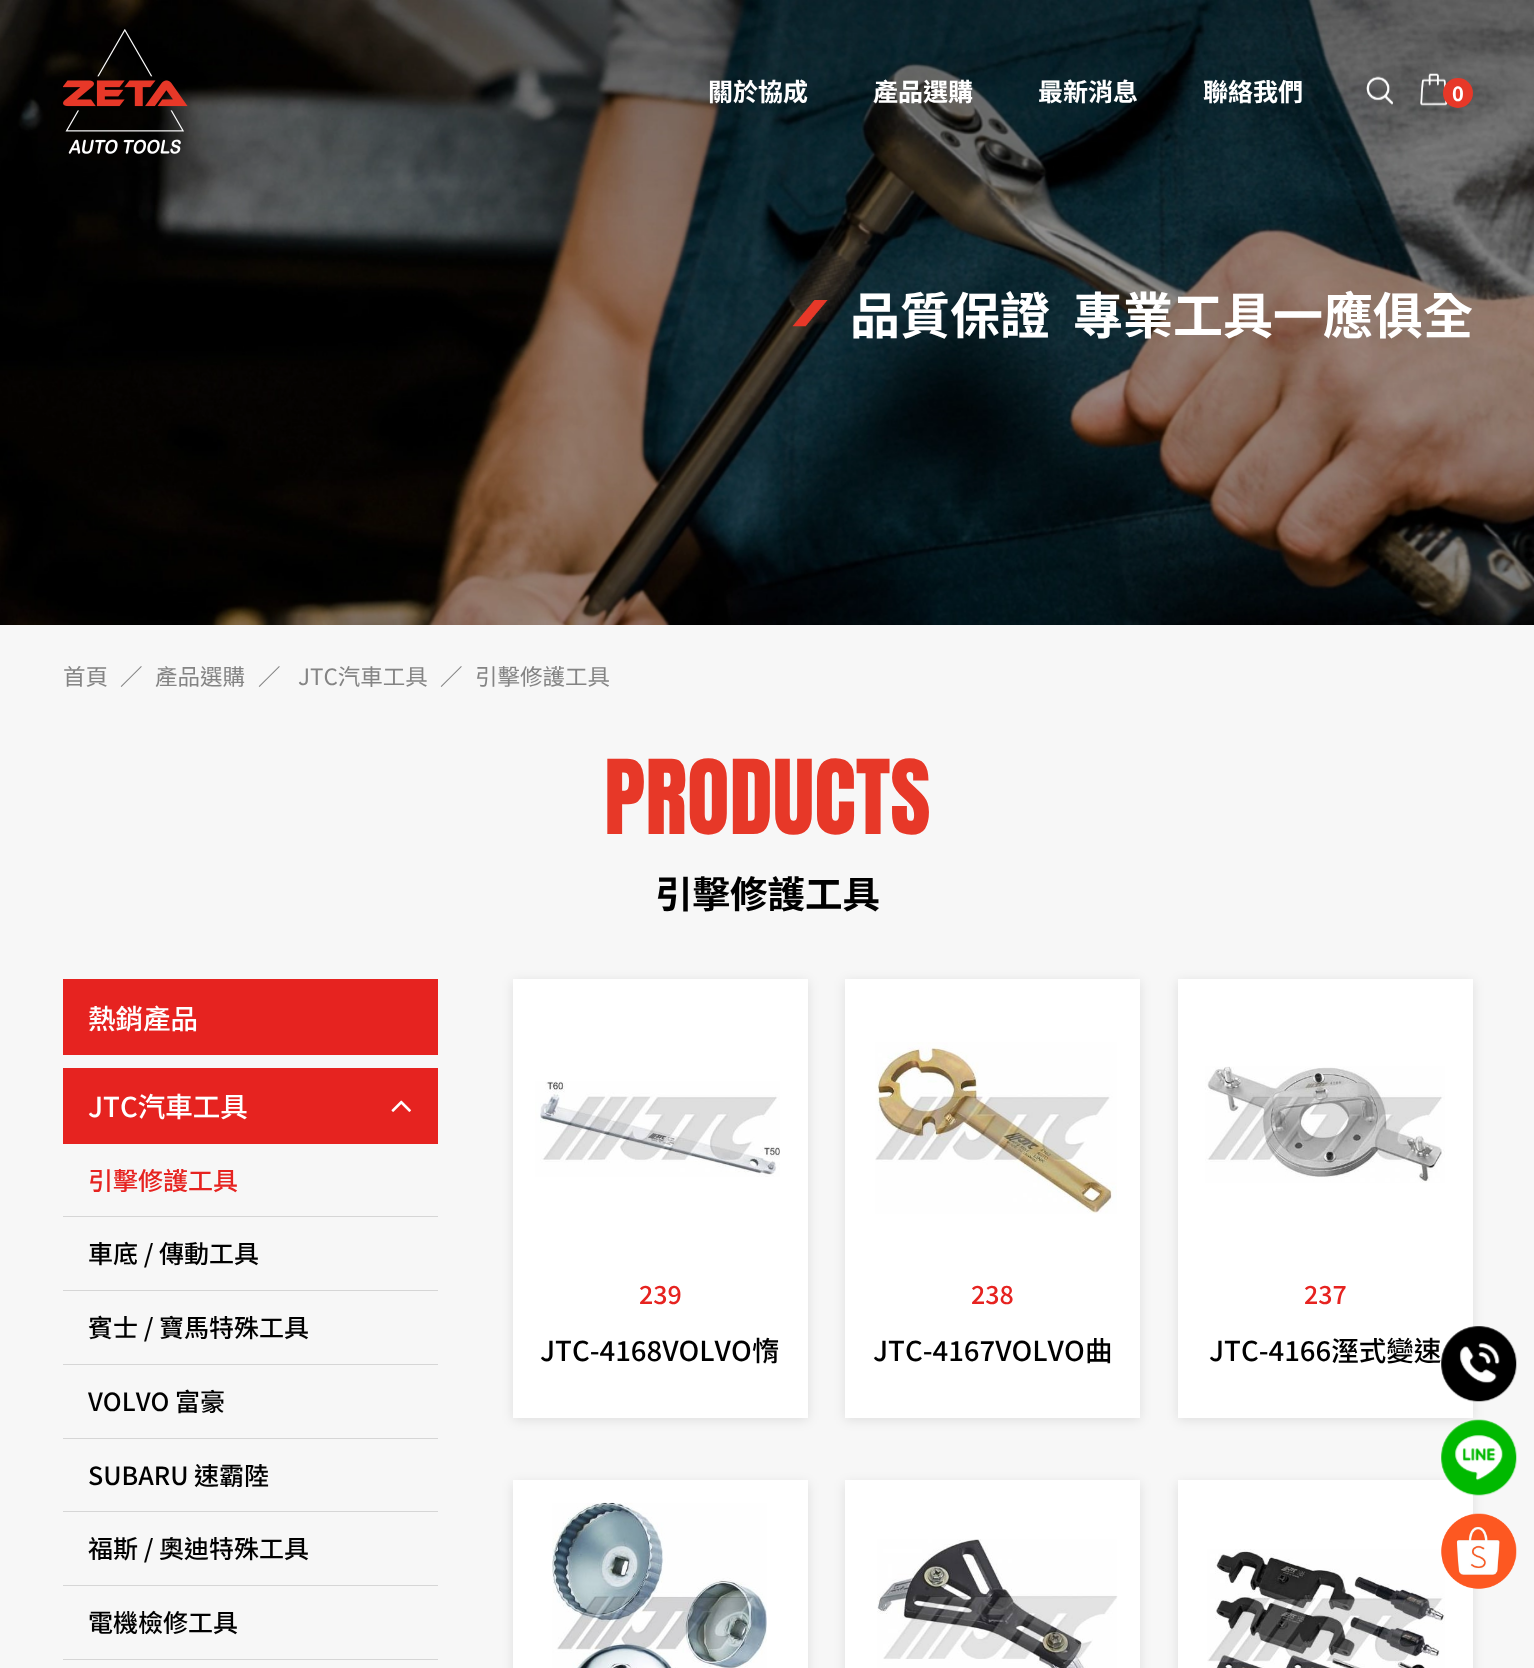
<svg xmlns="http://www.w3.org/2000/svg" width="1534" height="1668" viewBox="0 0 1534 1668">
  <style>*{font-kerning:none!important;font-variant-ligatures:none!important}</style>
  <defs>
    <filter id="blur1" x="-50%" y="-200%" width="200%" height="500%"><feGaussianBlur stdDeviation="6"/></filter>
  </defs>
  <rect width="100%" height="100%" fill="#f7f7f7"/>
  <image x="0" y="0" width="1534" height="625" href="img4.png"/>
  <image x="63" y="29" width="125" height="125" href="img1.png"/>
  <text x="708" y="101" font-family="Noto Sans TC" font-size="25" font-weight="bold" fill="#ffffff">關於協成</text>
  <text x="873" y="101" font-family="Noto Sans TC" font-size="25" font-weight="bold" fill="#ffffff">產品選購</text>
  <text x="1038" y="101" font-family="Noto Sans TC" font-size="25" font-weight="bold" fill="#ffffff">最新消息</text>
  <text x="1203" y="101" font-family="Noto Sans TC" font-size="25" font-weight="bold" fill="#ffffff">聯絡我們</text>
  <image x="1366" y="76" width="27" height="29" href="img2.png"/>
  <image x="1420" y="73" width="28" height="33" href="img3.png"/>
  <circle cx="1458" cy="93" r="15" fill="#e73828"/>
  <text x="1452" y="101" font-family="Noto Sans TC" font-size="20" font-weight="bold" fill="#ffffff">0</text>
  <image x="792" y="300" width="36" height="27" href="img5.png"/>
  <text x="850" y="334" font-family="Noto Sans TC" font-size="50" font-weight="bold" fill="#ffffff">品質保證</text>
  <text x="1073" y="334" font-family="Noto Sans TC" font-size="50" font-weight="bold" fill="#ffffff">專業工具一應俱全</text>
  <text x="63" y="685" font-family="Noto Sans TC" font-size="22.5" fill="#848484">首頁</text>
  <text x="120" y="685" font-family="Noto Sans TC" font-size="22.5" fill="#848484">／</text>
  <text x="155" y="685" font-family="Noto Sans TC" font-size="22.5" fill="#848484">產品選購</text>
  <text x="258" y="685" font-family="Noto Sans TC" font-size="22.5" fill="#848484">／</text>
  <text x="298" y="685" font-family="Noto Sans TC" font-size="22.5" fill="#848484">JTC汽車工具</text>
  <text x="440" y="685" font-family="Noto Sans TC" font-size="22.5" fill="#848484">／</text>
  <text x="475" y="685" font-family="Noto Sans TC" font-size="22.5" fill="#848484">引擊修護工具</text>
  <text x="604" y="834" font-family="Anton" font-size="87.5" fill="#e73828">PRODUCTS</text>
  <text x="655" y="908" font-family="Noto Sans TC" font-size="37.5" font-weight="bold" fill="#000000">引擊修護工具</text>
  <rect x="63" y="979" width="375" height="76" fill="#e62320"/>
  <text x="88" y="1029" font-family="Noto Sans TC" font-size="27.5" font-weight="500" fill="#ffffff">熱銷產品</text>
  <rect x="63" y="1068" width="375" height="76" fill="#e62320"/>
  <text x="88" y="1117" font-family="Noto Sans TC" font-size="27.5" font-weight="500" fill="#ffffff">JTC汽車工具</text>
  <image x="391" y="1100" width="20" height="12" href="img6.png"/>
  <rect x="63" y="1216" width="375" height="1" fill="#d6d6d6"/>
  <text x="88" y="1190" font-family="Noto Sans TC" font-size="25" font-weight="500" fill="#e62320">引擊修護工具</text>
  <rect x="63" y="1290" width="375" height="1" fill="#d6d6d6"/>
  <text x="88" y="1263" font-family="Noto Sans TC" font-size="25" font-weight="500" fill="#000000">車底 / 傳動工具</text>
  <rect x="63" y="1364" width="375" height="1" fill="#d6d6d6"/>
  <text x="88" y="1337" font-family="Noto Sans TC" font-size="25" font-weight="500" fill="#000000">賓士 / 寶馬特殊工具</text>
  <rect x="63" y="1438" width="375" height="1" fill="#d6d6d6"/>
  <text x="88" y="1411" font-family="Noto Sans TC" font-size="25" font-weight="500" fill="#000000">VOLVO 富豪</text>
  <rect x="63" y="1511" width="375" height="1" fill="#d6d6d6"/>
  <text x="88" y="1485" font-family="Noto Sans TC" font-size="25" font-weight="500" fill="#000000">SUBARU 速霸陸</text>
  <rect x="63" y="1585" width="375" height="1" fill="#d6d6d6"/>
  <text x="88" y="1558" font-family="Noto Sans TC" font-size="25" font-weight="500" fill="#000000">福斯 / 奧迪特殊工具</text>
  <rect x="63" y="1659" width="375" height="1" fill="#d6d6d6"/>
  <text x="88" y="1632" font-family="Noto Sans TC" font-size="25" font-weight="500" fill="#000000">電機檢修工具</text>
  <rect x="513" y="981" width="295" height="439" fill="#000000" fill-opacity="0.1" filter="url(#blur1)"/>
  <rect x="513" y="979" width="295" height="439" fill="#ffffff"/>
  <image x="535" y="1081" width="245" height="96" href="img7.png"/>
  <text x="639" y="1304" font-family="Noto Sans TC" font-size="25" font-weight="500" fill="#e62320">239</text>
  <text x="540" y="1361" font-family="Noto Sans TC" font-size="27.5" font-weight="500" fill="#000000">JTC-4168VOLVO</text>
  <text x="752" y="1361" font-family="Noto Sans TC" font-size="27.5" font-weight="500" fill="#000000">惰</text>
  <rect x="845" y="981" width="295" height="439" fill="#000000" fill-opacity="0.1" filter="url(#blur1)"/>
  <rect x="845" y="979" width="295" height="439" fill="#ffffff"/>
  <image x="875" y="1042" width="242" height="172" href="img8.png"/>
  <text x="971" y="1304" font-family="Noto Sans TC" font-size="25" font-weight="500" fill="#e62320">238</text>
  <text x="873" y="1361" font-family="Noto Sans TC" font-size="27.5" font-weight="500" fill="#000000">JTC-4167VOLVO</text>
  <text x="1085" y="1361" font-family="Noto Sans TC" font-size="27.5" font-weight="500" fill="#000000">曲</text>
  <rect x="1178" y="981" width="295" height="439" fill="#000000" fill-opacity="0.1" filter="url(#blur1)"/>
  <rect x="1178" y="979" width="295" height="439" fill="#ffffff"/>
  <image x="1205" y="1066" width="240" height="117" href="img9.png"/>
  <text x="1304" y="1304" font-family="Noto Sans TC" font-size="25" font-weight="500" fill="#e62320">237</text>
  <text x="1209" y="1361" font-family="Noto Sans TC" font-size="27.5" font-weight="500" fill="#000000">JTC-4166溼式變速</text>
  <rect x="513" y="1483" width="295" height="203" fill="#000000" fill-opacity="0.1" filter="url(#blur1)"/>
  <rect x="513" y="1480" width="295" height="188" fill="#ffffff"/>
  <image x="552" y="1502" width="215" height="166" href="img10.png"/>
  <rect x="845" y="1483" width="295" height="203" fill="#000000" fill-opacity="0.1" filter="url(#blur1)"/>
  <rect x="845" y="1480" width="295" height="188" fill="#ffffff"/>
  <image x="877" y="1539" width="241" height="129" href="img11.png"/>
  <rect x="1178" y="1483" width="295" height="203" fill="#000000" fill-opacity="0.1" filter="url(#blur1)"/>
  <rect x="1178" y="1480" width="295" height="188" fill="#ffffff"/>
  <image x="1207" y="1549" width="238" height="119" href="img12.png"/>
  <image x="1441" y="1326" width="76" height="76" href="img13.png"/>
  <image x="1441" y="1419" width="76" height="77" href="img14.png"/>
  <image x="1441" y="1513" width="76" height="76" href="img15.png"/>
</svg>
